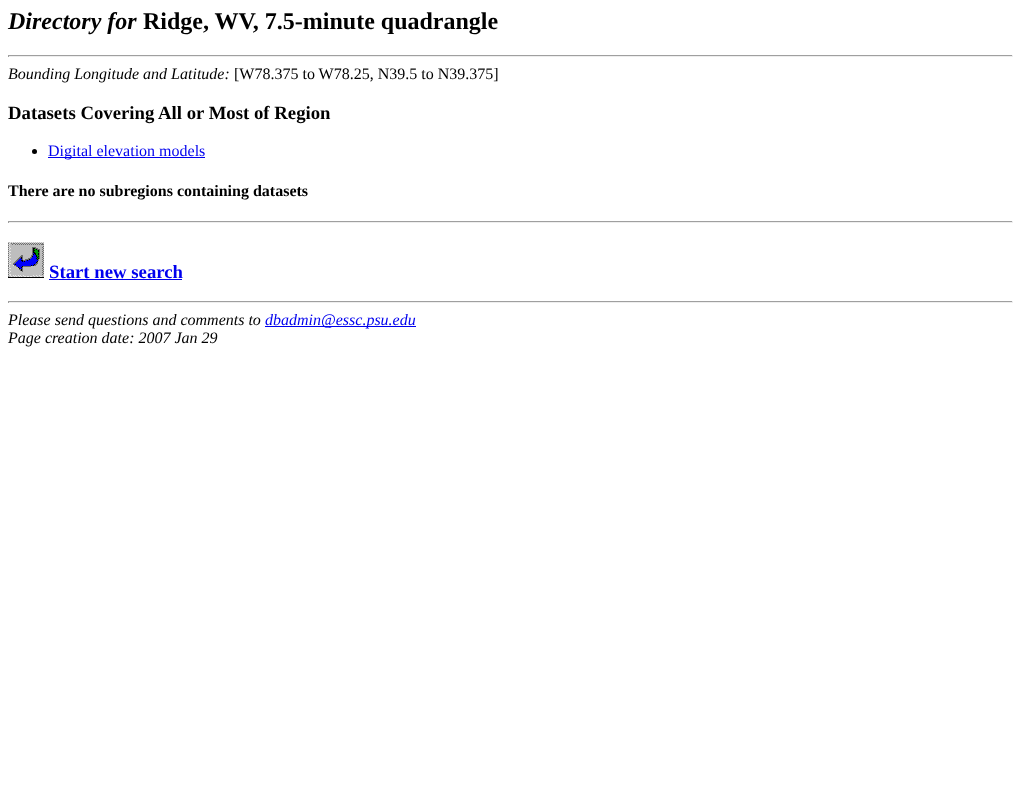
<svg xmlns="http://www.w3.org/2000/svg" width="1021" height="812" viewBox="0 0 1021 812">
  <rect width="100%" height="100%" fill="#ffffff"/>
  <text x="8" y="29" font-family="Liberation Serif" font-size="24" font-weight="bold" font-style="italic" fill="#000000">Directory for</text>
  <text x="143" y="29" font-family="Liberation Serif" font-size="24" font-weight="bold" fill="#000000">Ridge, WV, 7.5-minute quadrangle</text>
  <rect x="8" y="55" width="1005" height="1" fill="#9f9f9f"/>
  <rect x="1012" y="55" width="1" height="2" fill="#eeeeee"/>
  <rect x="8" y="56" width="1005" height="1" fill="#eeeeee"/>
  <rect x="8" y="55" width="1" height="2" fill="#9f9f9f"/>
  <text x="8" y="79" font-family="Liberation Serif" font-size="16" font-style="italic" fill="#000000">Bounding Longitude and Latitude:</text>
  <text x="234" y="79" font-family="Liberation Serif" font-size="16" fill="#000000">[W78.375 to W78.25, N39.5 to N39.375]</text>
  <text x="8" y="119" font-family="Liberation Serif" font-size="18.75" font-weight="bold" fill="#000000">Datasets Covering All or Most of Region</text>
  <circle cx="34.5" cy="151.5" r="2.5" fill="#000000"/>
  <rect x="48" y="157" width="157" height="1" fill="#0000ee"/>
  <text x="48" y="156" font-family="Liberation Serif" font-size="16" fill="#0000ee">Digital elevation models</text>
  <text x="8" y="196" font-family="Liberation Serif" font-size="16" font-weight="bold" fill="#000000">There are no subregions containing datasets</text>
  <rect x="8" y="221" width="1005" height="1" fill="#9f9f9f"/>
  <rect x="1012" y="221" width="1" height="2" fill="#eeeeee"/>
  <rect x="8" y="222" width="1005" height="1" fill="#eeeeee"/>
  <rect x="8" y="221" width="1" height="2" fill="#9f9f9f"/>
  <image x="8" y="242" width="36" height="36" href="img1.png"/>
  <text x="49" y="278" font-family="Liberation Serif" font-size="18.75" font-weight="bold" fill="#0000ee">Start new search</text>
  <rect x="49" y="279" width="133" height="1" fill="#0000ee"/>
  <rect x="8" y="301" width="1005" height="1" fill="#9f9f9f"/>
  <rect x="1012" y="301" width="1" height="2" fill="#eeeeee"/>
  <rect x="8" y="302" width="1005" height="1" fill="#eeeeee"/>
  <rect x="8" y="301" width="1" height="2" fill="#9f9f9f"/>
  <text x="8" y="325" font-family="Liberation Serif" font-size="16" font-style="italic" fill="#000000">Please send questions and comments to</text>
  <rect x="265" y="326" width="151" height="1" fill="#0000ee"/>
  <text x="265" y="325" font-family="Liberation Serif" font-size="16" font-style="italic" fill="#0000ee">dbadmin@essc.psu.edu</text>
  <text x="8" y="343" font-family="Liberation Serif" font-size="16" font-style="italic" fill="#000000">Page creation date: 2007 Jan 29</text>
</svg>
